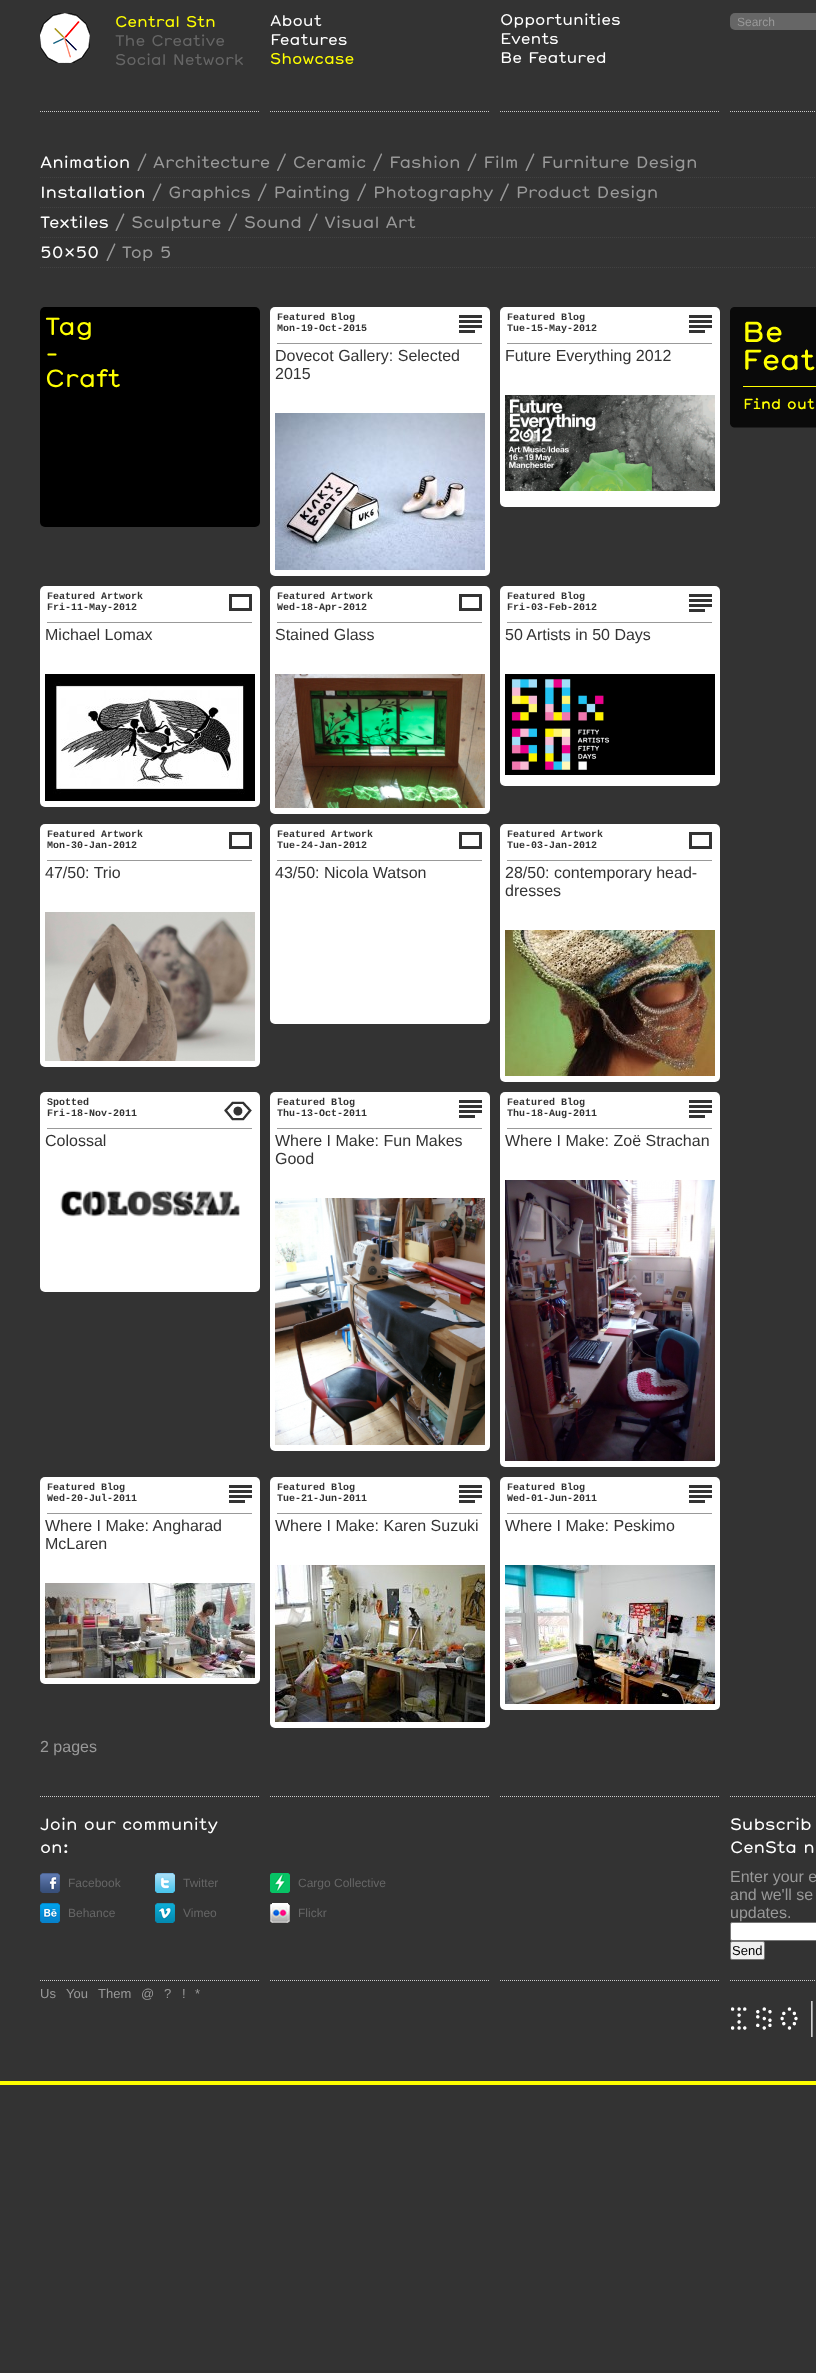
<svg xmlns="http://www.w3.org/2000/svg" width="816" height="2373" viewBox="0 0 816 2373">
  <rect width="100%" height="100%" fill="#333333"/>
  <rect x="0" y="2081" width="816" height="4" fill="#ffff00"/>
  <path d="M40 111.5H260" fill="none" stroke="#cccccc" stroke-dasharray="1 1"/>
  <image x="40" y="13" width="50" height="50" href="img1.png"/>
  <text x="115" y="27" font-family="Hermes" font-size="15" fill="#ffff00">Central Stn</text>
  <text x="115" y="46" font-family="Hermes" font-size="15" fill="#666666">The Creative</text>
  <text x="115" y="65" font-family="Hermes" font-size="15" fill="#666666">Social Network</text>
  <path d="M270 111.5H490" fill="none" stroke="#cccccc" stroke-dasharray="1 1"/>
  <text x="270" y="26" font-family="Hermes" font-size="15" fill="#ffffff">About</text>
  <text x="270" y="45" font-family="Hermes" font-size="15" fill="#ffffff">Features</text>
  <text x="270" y="64" font-family="Hermes" font-size="15" fill="#ffff00">Showcase</text>
  <path d="M500 111.5H720" fill="none" stroke="#cccccc" stroke-dasharray="1 1"/>
  <text x="500" y="25" font-family="Hermes" font-size="15" fill="#ffffff">Opportunities</text>
  <text x="500" y="44" font-family="Hermes" font-size="15" fill="#ffffff">Events</text>
  <text x="500" y="63" font-family="Hermes" font-size="15" fill="#ffffff">Be Featured</text>
  <path d="M730 111.5H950" fill="none" stroke="#cccccc" stroke-dasharray="1 1"/>
  <rect x="730" y="13" width="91" height="17" rx="5" fill="#666666"/>
  <text x="737" y="26" font-family="Liberation Sans" font-size="12" fill="#999999">Search</text>
  <text x="40" y="168" font-family="Hermes" font-size="16" fill="#ffffff">Animation</text>
  <text x="137" y="168" font-family="Hermes" font-size="16" fill="#999999">/ Architecture / Ceramic / Fashion / Film / Furniture Design</text>
  <image x="40" y="177" width="775" height="91" href="img2.png"/>
  <text x="40" y="198" font-family="Hermes" font-size="16" fill="#ffffff">Installation</text>
  <text x="152" y="198" font-family="Hermes" font-size="16" fill="#999999">/ Graphics / Painting / Photography / Product Design</text>
  <text x="40" y="228" font-family="Hermes" font-size="16" fill="#ffffff">Textiles</text>
  <text x="115" y="228" font-family="Hermes" font-size="16" fill="#999999">/ Sculpture / Sound / Visual Art</text>
  <text x="40" y="258" font-family="Hermes" font-size="16" fill="#ffffff">50x50</text>
  <text x="106" y="258" font-family="Hermes" font-size="16" fill="#999999">/ Top 5</text>
  <rect x="40" y="307" width="220" height="220" rx="5" fill="#000000"/>
  <text x="45" y="335" font-family="Hermes" font-size="24" fill="#ffff00">Tag</text>
  <text x="45" y="361" font-family="Hermes" font-size="24" fill="#ffff00">-</text>
  <text x="45" y="387" font-family="Hermes" font-size="24" fill="#ffff00">Craft</text>
  <rect x="270" y="307" width="220" height="269" rx="5" fill="#ffffff"/>
  <rect x="277" y="343" width="205" height="1" fill="#999999"/>
  <text x="277" y="320" font-family="Liberation Mono" font-size="10" font-weight="bold" fill="#333333">Featured Blog</text>
  <text x="277" y="331" font-family="Liberation Mono" font-size="10" font-weight="bold" fill="#333333">Mon-19-Oct-2015</text>
  <image x="459" y="315" width="23" height="18" href="img3.png"/>
  <text x="275" y="361" font-family="Liberation Sans" font-size="16" fill="#333333">Dovecot Gallery: Selected</text>
  <text x="275" y="379" font-family="Liberation Sans" font-size="16" fill="#333333">2015</text>
  <image x="275" y="413" width="210" height="157" href="img4.png"/>
  <rect x="500" y="307" width="220" height="200" rx="5" fill="#ffffff"/>
  <rect x="507" y="343" width="205" height="1" fill="#999999"/>
  <text x="507" y="320" font-family="Liberation Mono" font-size="10" font-weight="bold" fill="#333333">Featured Blog</text>
  <text x="507" y="331" font-family="Liberation Mono" font-size="10" font-weight="bold" fill="#333333">Tue-15-May-2012</text>
  <image x="689" y="315" width="23" height="18" href="img3.png"/>
  <text x="505" y="361" font-family="Liberation Sans" font-size="16" fill="#333333">Future Everything 2012</text>
  <image x="505" y="395" width="210" height="96" href="img5.png"/>
  <rect x="40" y="586" width="220" height="221" rx="5" fill="#ffffff"/>
  <rect x="47" y="622" width="205" height="1" fill="#999999"/>
  <text x="47" y="599" font-family="Liberation Mono" font-size="10" font-weight="bold" fill="#333333">Featured Artwork</text>
  <text x="47" y="610" font-family="Liberation Mono" font-size="10" font-weight="bold" fill="#333333">Fri-11-May-2012</text>
  <image x="229" y="594" width="23" height="17" href="img6.png"/>
  <text x="45" y="640" font-family="Liberation Sans" font-size="16" fill="#333333">Michael Lomax</text>
  <image x="45" y="674" width="210" height="127" href="img7.png"/>
  <rect x="270" y="586" width="220" height="228" rx="5" fill="#ffffff"/>
  <rect x="277" y="622" width="205" height="1" fill="#999999"/>
  <text x="277" y="599" font-family="Liberation Mono" font-size="10" font-weight="bold" fill="#333333">Featured Artwork</text>
  <text x="277" y="610" font-family="Liberation Mono" font-size="10" font-weight="bold" fill="#333333">Wed-18-Apr-2012</text>
  <image x="459" y="594" width="23" height="17" href="img6.png"/>
  <text x="275" y="640" font-family="Liberation Sans" font-size="16" fill="#333333">Stained Glass</text>
  <image x="275" y="674" width="210" height="134" href="img8.png"/>
  <rect x="500" y="586" width="220" height="200" rx="5" fill="#ffffff"/>
  <rect x="507" y="622" width="205" height="1" fill="#999999"/>
  <text x="507" y="599" font-family="Liberation Mono" font-size="10" font-weight="bold" fill="#333333">Featured Blog</text>
  <text x="507" y="610" font-family="Liberation Mono" font-size="10" font-weight="bold" fill="#333333">Fri-03-Feb-2012</text>
  <image x="689" y="594" width="23" height="18" href="img3.png"/>
  <text x="505" y="640" font-family="Liberation Sans" font-size="16" fill="#333333">50 Artists in 50 Days</text>
  <image x="505" y="674" width="210" height="101" href="img9.png"/>
  <rect x="40" y="824" width="220" height="243" rx="5" fill="#ffffff"/>
  <rect x="47" y="860" width="205" height="1" fill="#999999"/>
  <text x="47" y="837" font-family="Liberation Mono" font-size="10" font-weight="bold" fill="#333333">Featured Artwork</text>
  <text x="47" y="848" font-family="Liberation Mono" font-size="10" font-weight="bold" fill="#333333">Mon-30-Jan-2012</text>
  <image x="229" y="832" width="23" height="17" href="img6.png"/>
  <text x="45" y="878" font-family="Liberation Sans" font-size="16" fill="#333333">47/50: Trio</text>
  <image x="45" y="912" width="210" height="149" href="img10.png"/>
  <rect x="270" y="824" width="220" height="200" rx="5" fill="#ffffff"/>
  <rect x="277" y="860" width="205" height="1" fill="#999999"/>
  <text x="277" y="837" font-family="Liberation Mono" font-size="10" font-weight="bold" fill="#333333">Featured Artwork</text>
  <text x="277" y="848" font-family="Liberation Mono" font-size="10" font-weight="bold" fill="#333333">Tue-24-Jan-2012</text>
  <image x="459" y="832" width="23" height="17" href="img6.png"/>
  <text x="275" y="878" font-family="Liberation Sans" font-size="16" fill="#333333">43/50: Nicola Watson</text>
  <rect x="500" y="824" width="220" height="258" rx="5" fill="#ffffff"/>
  <rect x="507" y="860" width="205" height="1" fill="#999999"/>
  <text x="507" y="837" font-family="Liberation Mono" font-size="10" font-weight="bold" fill="#333333">Featured Artwork</text>
  <text x="507" y="848" font-family="Liberation Mono" font-size="10" font-weight="bold" fill="#333333">Tue-03-Jan-2012</text>
  <image x="689" y="832" width="23" height="17" href="img6.png"/>
  <text x="505" y="878" font-family="Liberation Sans" font-size="16" fill="#333333">28/50: contemporary head-</text>
  <text x="505" y="896" font-family="Liberation Sans" font-size="16" fill="#333333">dresses</text>
  <image x="505" y="930" width="210" height="146" href="img11.png"/>
  <rect x="40" y="1092" width="220" height="200" rx="5" fill="#ffffff"/>
  <rect x="47" y="1128" width="205" height="1" fill="#999999"/>
  <text x="47" y="1105" font-family="Liberation Mono" font-size="10" font-weight="bold" fill="#333333">Spotted</text>
  <text x="47" y="1116" font-family="Liberation Mono" font-size="10" font-weight="bold" fill="#333333">Fri-18-Nov-2011</text>
  <image x="224" y="1101" width="28" height="20" href="img12.png"/>
  <text x="45" y="1146" font-family="Liberation Sans" font-size="16" fill="#333333">Colossal</text>
  <image x="60" y="1190" width="180" height="27" href="img13.png"/>
  <rect x="270" y="1092" width="220" height="359" rx="5" fill="#ffffff"/>
  <rect x="277" y="1128" width="205" height="1" fill="#999999"/>
  <text x="277" y="1105" font-family="Liberation Mono" font-size="10" font-weight="bold" fill="#333333">Featured Blog</text>
  <text x="277" y="1116" font-family="Liberation Mono" font-size="10" font-weight="bold" fill="#333333">Thu-13-Oct-2011</text>
  <image x="459" y="1100" width="23" height="18" href="img3.png"/>
  <text x="275" y="1146" font-family="Liberation Sans" font-size="16" fill="#333333">Where I Make: Fun Makes</text>
  <text x="275" y="1164" font-family="Liberation Sans" font-size="16" fill="#333333">Good</text>
  <image x="275" y="1198" width="210" height="247" href="img14.png"/>
  <rect x="500" y="1092" width="220" height="375" rx="5" fill="#ffffff"/>
  <rect x="507" y="1128" width="205" height="1" fill="#999999"/>
  <text x="507" y="1105" font-family="Liberation Mono" font-size="10" font-weight="bold" fill="#333333">Featured Blog</text>
  <text x="507" y="1116" font-family="Liberation Mono" font-size="10" font-weight="bold" fill="#333333">Thu-18-Aug-2011</text>
  <image x="689" y="1100" width="23" height="18" href="img3.png"/>
  <text x="505" y="1146" font-family="Liberation Sans" font-size="16" fill="#333333">Where I Make: Zoë Strachan</text>
  <image x="505" y="1180" width="210" height="281" href="img15.png"/>
  <rect x="40" y="1477" width="220" height="207" rx="5" fill="#ffffff"/>
  <rect x="47" y="1513" width="205" height="1" fill="#999999"/>
  <text x="47" y="1490" font-family="Liberation Mono" font-size="10" font-weight="bold" fill="#333333">Featured Blog</text>
  <text x="47" y="1501" font-family="Liberation Mono" font-size="10" font-weight="bold" fill="#333333">Wed-20-Jul-2011</text>
  <image x="229" y="1485" width="23" height="18" href="img3.png"/>
  <text x="45" y="1531" font-family="Liberation Sans" font-size="16" fill="#333333">Where I Make: Angharad</text>
  <text x="45" y="1549" font-family="Liberation Sans" font-size="16" fill="#333333">McLaren</text>
  <image x="45" y="1583" width="210" height="95" href="img16.png"/>
  <rect x="270" y="1477" width="220" height="251" rx="5" fill="#ffffff"/>
  <rect x="277" y="1513" width="205" height="1" fill="#999999"/>
  <text x="277" y="1490" font-family="Liberation Mono" font-size="10" font-weight="bold" fill="#333333">Featured Blog</text>
  <text x="277" y="1501" font-family="Liberation Mono" font-size="10" font-weight="bold" fill="#333333">Tue-21-Jun-2011</text>
  <image x="459" y="1485" width="23" height="18" href="img3.png"/>
  <text x="275" y="1531" font-family="Liberation Sans" font-size="16" fill="#333333">Where I Make: Karen Suzuki</text>
  <image x="275" y="1565" width="210" height="157" href="img17.png"/>
  <rect x="500" y="1477" width="220" height="233" rx="5" fill="#ffffff"/>
  <rect x="507" y="1513" width="205" height="1" fill="#999999"/>
  <text x="507" y="1490" font-family="Liberation Mono" font-size="10" font-weight="bold" fill="#333333">Featured Blog</text>
  <text x="507" y="1501" font-family="Liberation Mono" font-size="10" font-weight="bold" fill="#333333">Wed-01-Jun-2011</text>
  <image x="689" y="1485" width="23" height="18" href="img3.png"/>
  <text x="505" y="1531" font-family="Liberation Sans" font-size="16" fill="#333333">Where I Make: Peskimo</text>
  <image x="505" y="1565" width="210" height="139" href="img18.png"/>
  <text x="40" y="1752" font-family="Liberation Sans" font-size="16" fill="#999999">2 pages</text>
  <image x="730" y="307" width="86" height="121" href="img19.png"/>
  <path d="M40 1796.5H260" fill="none" stroke="#cccccc" stroke-dasharray="1 1"/>
  <path d="M270 1796.5H490" fill="none" stroke="#cccccc" stroke-dasharray="1 1"/>
  <path d="M500 1796.5H720" fill="none" stroke="#cccccc" stroke-dasharray="1 1"/>
  <path d="M730 1796.5H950" fill="none" stroke="#cccccc" stroke-dasharray="1 1"/>
  <text x="40" y="1830" font-family="Hermes" font-size="16" fill="#ffffff">Join our community</text>
  <text x="40" y="1853" font-family="Hermes" font-size="16" fill="#ffffff">on:</text>
  <image x="40" y="1873" width="20" height="20" href="img20.png"/>
  <text x="68" y="1887" font-family="Liberation Sans" font-size="12" fill="#666666">Facebook</text>
  <image x="155" y="1873" width="20" height="20" href="img21.png"/>
  <text x="183" y="1887" font-family="Liberation Sans" font-size="12" fill="#666666">Twitter</text>
  <image x="270" y="1873" width="20" height="20" href="img22.png"/>
  <text x="298" y="1887" font-family="Liberation Sans" font-size="12" fill="#666666">Cargo Collective</text>
  <image x="40" y="1903" width="20" height="20" href="img23.png"/>
  <text x="68" y="1917" font-family="Liberation Sans" font-size="12" fill="#666666">Behance</text>
  <image x="155" y="1903" width="20" height="20" href="img24.png"/>
  <text x="183" y="1917" font-family="Liberation Sans" font-size="12" fill="#666666">Vimeo</text>
  <image x="270" y="1903" width="20" height="20" href="img25.png"/>
  <text x="298" y="1917" font-family="Liberation Sans" font-size="12" fill="#666666">Flickr</text>
  <text x="730" y="1830" font-family="Hermes" font-size="16" fill="#ffffff">Subscrib</text>
  <text x="730" y="1853" font-family="Hermes" font-size="16" fill="#ffffff">CenSta n</text>
  <text x="730" y="1882" font-family="Liberation Sans" font-size="16" fill="#999999">Enter your e</text>
  <text x="730" y="1900" font-family="Liberation Sans" font-size="16" fill="#999999">and we'll se</text>
  <text x="730" y="1918" font-family="Liberation Sans" font-size="16" fill="#999999">updates.</text>
  <rect x="730.5" y="1922.5" width="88" height="18" rx="1.5" fill="#ffffff" stroke="#767676"/>
  <rect x="730.5" y="1941.5" width="34" height="18" rx="1.5" fill="#efefef" stroke="#767676"/>
  <text x="732" y="1955" font-family="Liberation Sans" font-size="13" fill="#000000">Send</text>
  <path d="M40 1980.5H260" fill="none" stroke="#cccccc" stroke-dasharray="1 1"/>
  <path d="M270 1980.5H490" fill="none" stroke="#cccccc" stroke-dasharray="1 1"/>
  <path d="M500 1980.5H720" fill="none" stroke="#cccccc" stroke-dasharray="1 1"/>
  <path d="M730 1980.5H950" fill="none" stroke="#cccccc" stroke-dasharray="1 1"/>
  <text x="40" y="1998" font-family="Liberation Sans" font-size="13" fill="#999999">Us</text>
  <text x="66" y="1998" font-family="Liberation Sans" font-size="13" fill="#999999">You</text>
  <text x="98" y="1998" font-family="Liberation Sans" font-size="13" fill="#999999">Them</text>
  <text x="141" y="1998" font-family="Liberation Sans" font-size="13" fill="#999999">@</text>
  <text x="164" y="1998" font-family="Liberation Sans" font-size="13" fill="#999999">?</text>
  <text x="182" y="1998" font-family="Liberation Sans" font-size="13" fill="#999999">!</text>
  <text x="195" y="1998" font-family="Liberation Sans" font-size="13" fill="#999999">*</text>
  <image x="731" y="2001" width="82" height="36" href="img26.png"/>
</svg>
